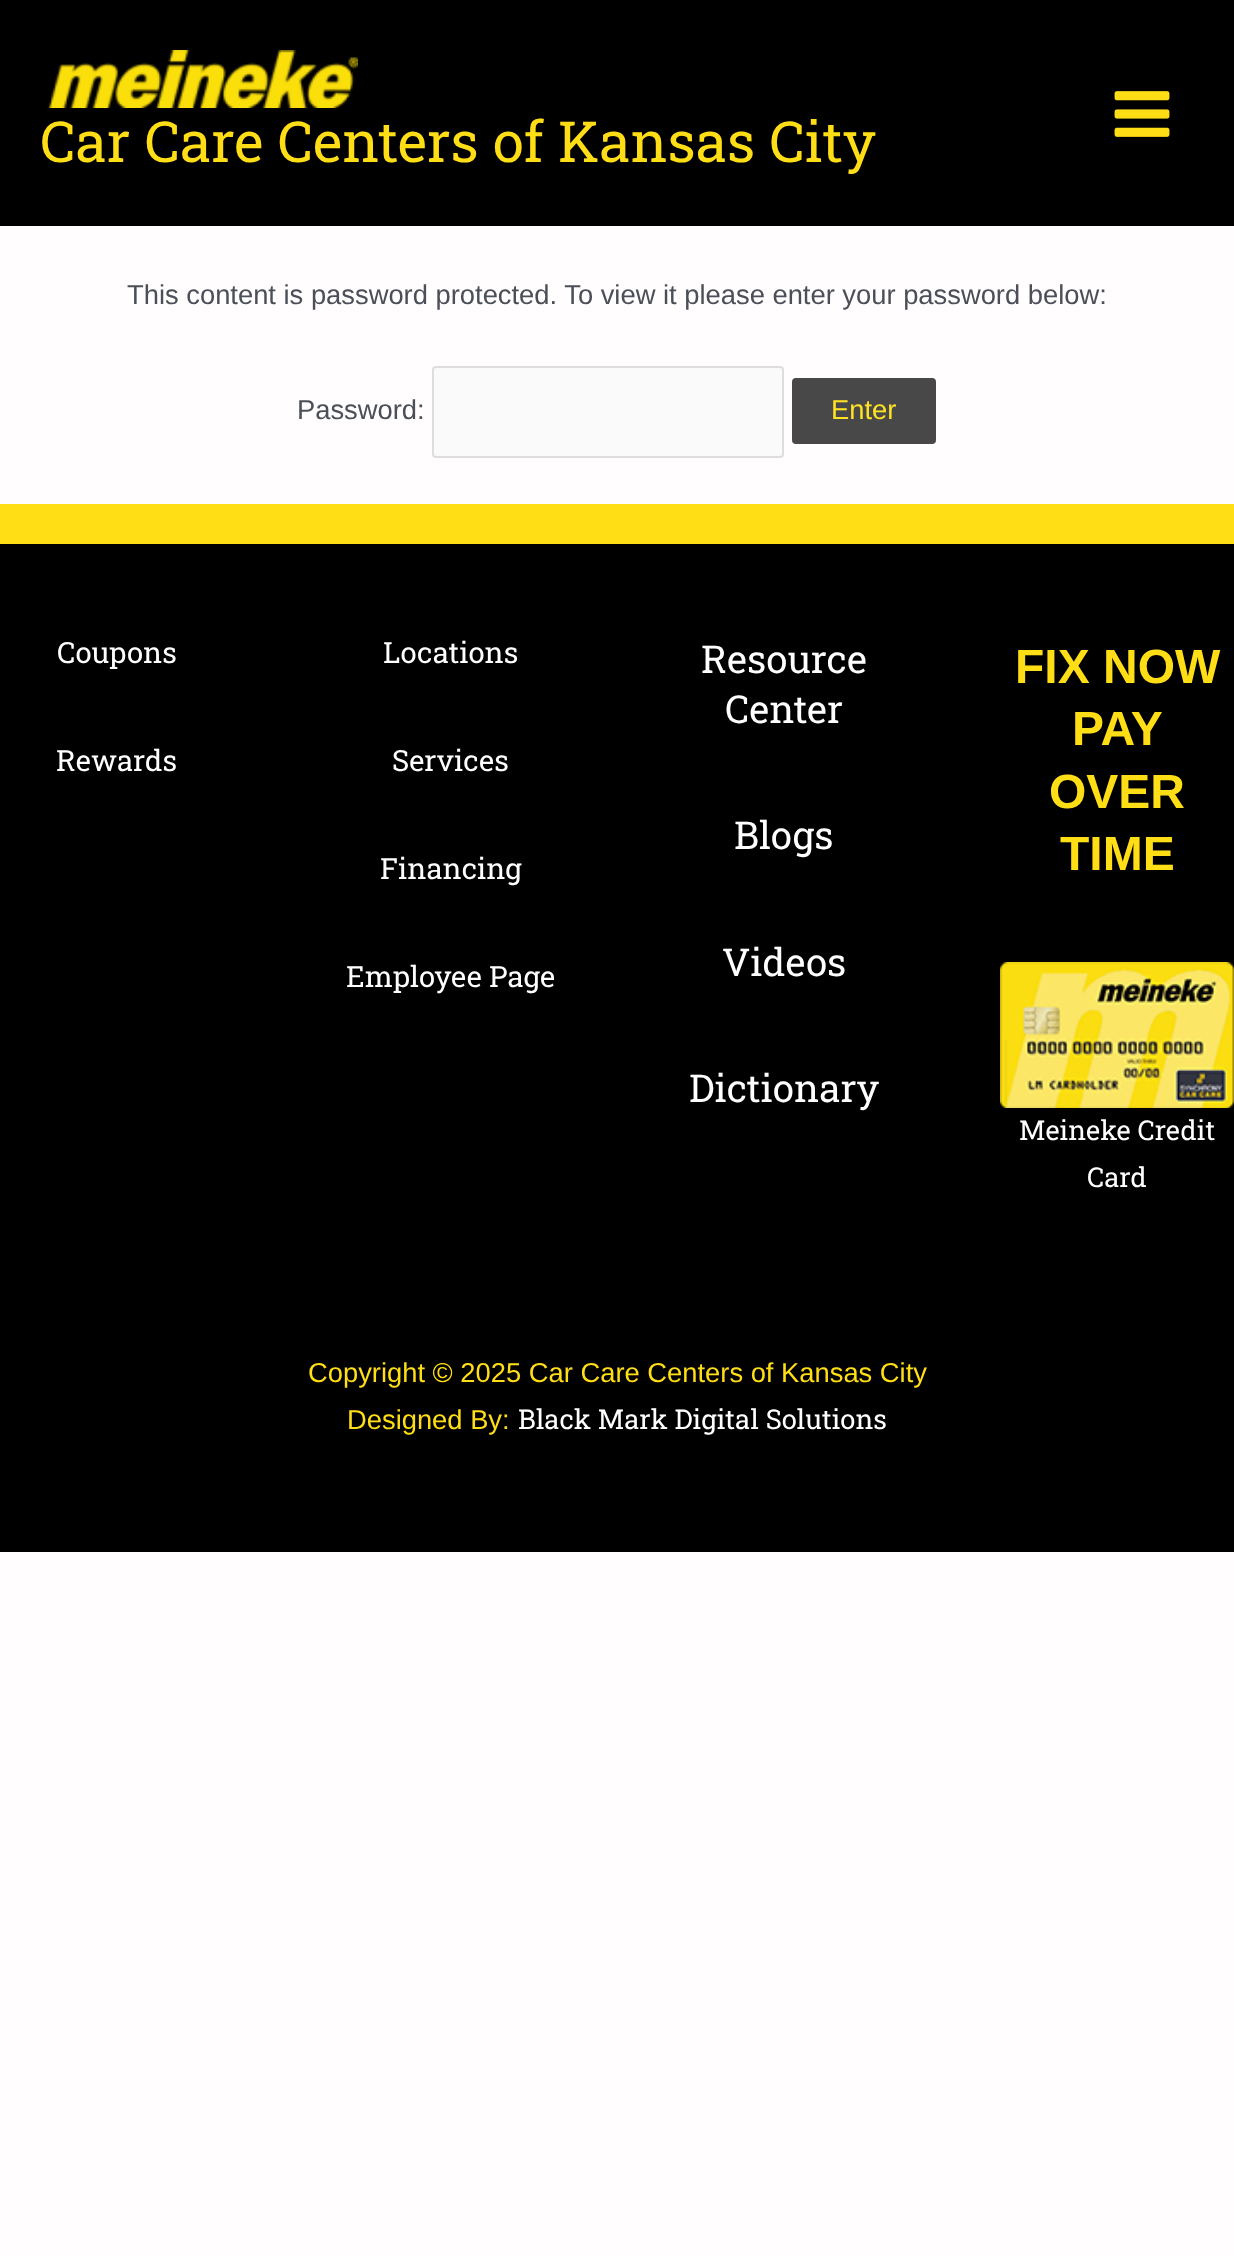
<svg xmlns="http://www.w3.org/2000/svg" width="1234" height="2256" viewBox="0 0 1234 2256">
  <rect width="100%" height="100%" fill="#fffdfd"/>
  <rect x="0" y="0" width="1234" height="226" fill="#000000"/>
  <image x="47" y="50" width="311" height="58" href="img1.png"/>
  <text x="40" y="162" font-family="Roboto Slab" font-size="56.5" fill="#ffde16">Car Care Centers of Kansas City</text>
  <image x="1114" y="91" width="56" height="46" href="img2.png"/>
  <text x="127" y="304" font-family="Liberation Sans" font-size="27.35" fill="#4b4f58">This content is password protected. To view it please enter your password below:</text>
  <text x="297" y="419" font-family="Liberation Sans" font-size="27.35" fill="#4b4f58">Password:</text>
  <rect x="433" y="367" width="350" height="90" rx="3" fill="#fafafa" stroke="#dddddd" stroke-width="2"/>
  <rect x="792" y="378" width="144" height="66" rx="4" fill="#484848"/>
  <text x="831" y="419" font-family="Liberation Sans" font-size="27.35" fill="#ffe224">Enter</text>
  <rect x="0" y="544" width="1234" height="1008" fill="#000000"/>
  <rect x="0" y="504" width="1234" height="40" fill="#ffde16"/>
  <text x="57" y="663" font-family="Roboto Slab" font-size="29.25" fill="#ffffff">Coupons</text>
  <text x="56" y="771" font-family="Roboto Slab" font-size="29.25" fill="#ffffff">Rewards</text>
  <text x="383" y="663" font-family="Roboto Slab" font-size="29.25" fill="#ffffff">Locations</text>
  <text x="392" y="771" font-family="Roboto Slab" font-size="29.25" fill="#ffffff">Services</text>
  <text x="380" y="879" font-family="Roboto Slab" font-size="29.25" fill="#ffffff">Financing</text>
  <text x="346" y="987" font-family="Roboto Slab" font-size="29.25" fill="#ffffff">Employee Page</text>
  <text x="701" y="673" font-family="Roboto Slab" font-size="38.5" fill="#ffffff">Resource</text>
  <text x="725" y="723" font-family="Roboto Slab" font-size="38.5" fill="#ffffff">Center</text>
  <text x="734" y="849" font-family="Roboto Slab" font-size="38.5" fill="#ffffff">Blogs</text>
  <text x="722" y="976" font-family="Roboto Slab" font-size="38.5" fill="#ffffff">Videos</text>
  <text x="689" y="1102" font-family="Roboto Slab" font-size="38.5" fill="#ffffff">Dictionary</text>
  <text x="1015" y="683" font-family="Liberation Sans" font-size="48" font-weight="bold" fill="#ffde16">FIX NOW</text>
  <text x="1072" y="745" font-family="Liberation Sans" font-size="48" font-weight="bold" fill="#ffde16">PAY</text>
  <text x="1049" y="808" font-family="Liberation Sans" font-size="48" font-weight="bold" fill="#ffde16">OVER</text>
  <text x="1060" y="870" font-family="Liberation Sans" font-size="48" font-weight="bold" fill="#ffde16">TIME</text>
  <image x="1000" y="962" width="234" height="146" href="img3.png"/>
  <text x="1019" y="1140" font-family="Roboto Slab" font-size="27.35" fill="#ffffff">Meineke Credit</text>
  <text x="1087" y="1187" font-family="Roboto Slab" font-size="27.35" fill="#ffffff">Card</text>
  <text x="308" y="1382" font-family="Liberation Sans" font-size="27.35" fill="#ffde16">Copyright © 2025 Car Care Centers of Kansas City</text>
  <text x="347" y="1429" font-family="Liberation Sans" font-size="27.35" fill="#ffde16">Designed By:</text>
  <text x="518" y="1429" font-family="Roboto Slab" font-size="27.35" fill="#ffffff">Black Mark Digital Solutions</text>
</svg>
